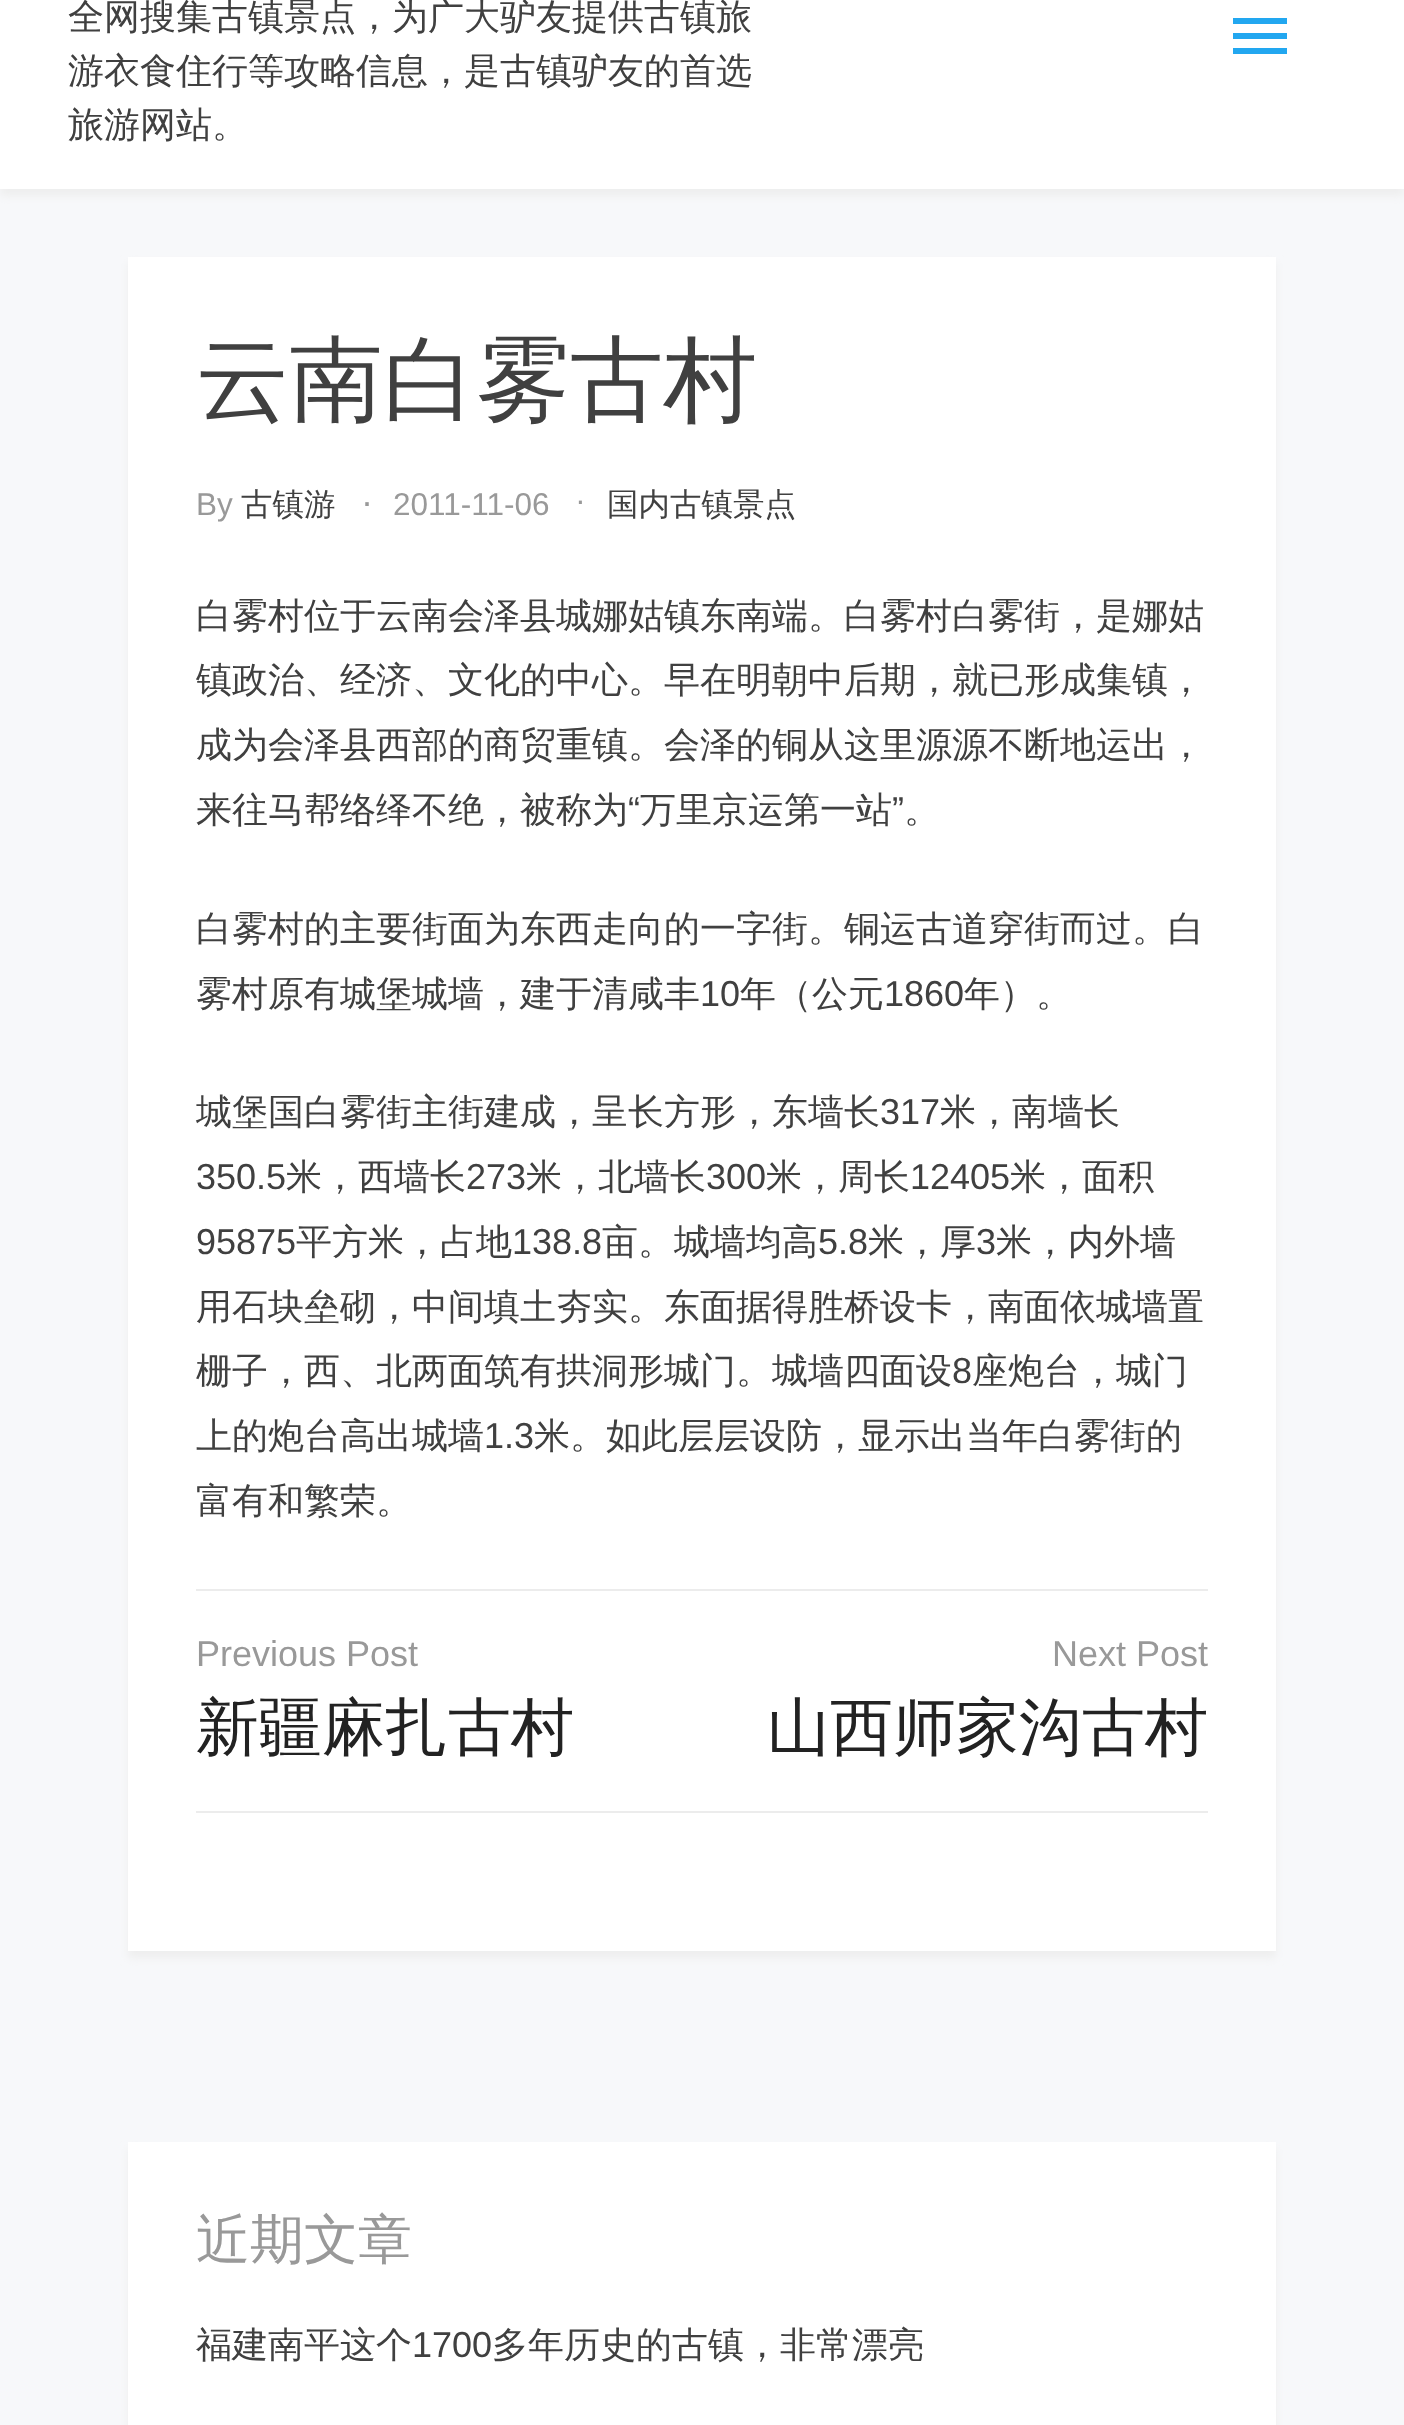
<svg xmlns="http://www.w3.org/2000/svg" width="1404" height="2425" viewBox="0 0 1404 2425">
  <defs>
    <filter id="blur1" x="-50%" y="-200%" width="200%" height="500%"><feGaussianBlur stdDeviation="4.5"/></filter>
  </defs>
  <rect width="100%" height="100%" fill="#f7f8fa"/>
  <rect x="0" y="-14" width="1404" height="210" fill="#eeeeee" filter="url(#blur1)"/>
  <rect x="0" y="0" width="1404" height="189" fill="#ffffff"/>
  <text x="68" y="29" font-family="WenQuanYi Zen Hei" font-size="36" font-weight="500" fill="#404040">全网搜集古镇景点，为广大驴友提供古镇旅</text>
  <text x="68" y="83" font-family="WenQuanYi Zen Hei" font-size="36" font-weight="500" fill="#404040">游衣食住行等攻略信息，是古镇驴友的首选</text>
  <text x="68" y="137" font-family="WenQuanYi Zen Hei" font-size="36" font-weight="500" fill="#404040">旅游网站。</text>
  <path d="M1233 54H1287V48H1233ZM1233 39H1287V33H1233ZM1233 18V24H1287V18Z" fill="#22a7f0"/>
  <rect x="128" y="263" width="1148" height="1695" fill="#eeeeee" filter="url(#blur1)"/>
  <rect x="128" y="257" width="1148" height="1694" fill="#ffffff"/>
  <text x="196" y="412" font-family="WenQuanYi Zen Hei" font-size="93.5" font-weight="500" fill="#404040">云南白雾古村</text>
  <text x="196" y="515" font-family="Liberation Sans" font-size="31.5" fill="#999999">By</text>
  <text x="241" y="515" font-family="WenQuanYi Zen Hei" font-size="31.5" font-weight="500" fill="#404040">古镇游</text>
  <text x="362" y="506" font-family="Liberation Sans" font-size="36" fill="#999999">.</text>
  <text x="393" y="515" font-family="Liberation Sans" font-size="31.5" fill="#999999">2011-11-06</text>
  <text x="576" y="504" font-family="Liberation Sans" font-size="31.5" fill="#999999">.</text>
  <text x="607" y="515" font-family="WenQuanYi Zen Hei" font-size="31.5" font-weight="500" fill="#404040">国内古镇景点</text>
  <text x="196" y="628" font-family="WenQuanYi Zen Hei" font-size="36" font-weight="500" fill="#404040">白雾村位于云南会泽县城娜姑镇东南端。白雾村白雾街，是娜姑</text>
  <text x="196" y="692" font-family="WenQuanYi Zen Hei" font-size="36" font-weight="500" fill="#404040">镇政治、经济、文化的中心。早在明朝中后期，就已形成集镇，</text>
  <text x="196" y="757" font-family="WenQuanYi Zen Hei" font-size="36" font-weight="500" fill="#404040">成为会泽县西部的商贸重镇。会泽的铜从这里源源不断地运出，</text>
  <text x="196" y="822" font-family="WenQuanYi Zen Hei" font-size="36" font-weight="500" fill="#404040">来往马帮络绎不绝，被称为</text>
  <text x="628" y="822" font-family="Liberation Sans" font-size="36" fill="#404040">“</text>
  <text x="640" y="822" font-family="WenQuanYi Zen Hei" font-size="36" font-weight="500" fill="#404040">万里京运第一站</text>
  <text x="892" y="822" font-family="Liberation Sans" font-size="36" fill="#404040">”</text>
  <text x="904" y="822" font-family="WenQuanYi Zen Hei" font-size="36" font-weight="500" fill="#404040">。</text>
  <text x="196" y="941" font-family="WenQuanYi Zen Hei" font-size="36" font-weight="500" fill="#404040">白雾村的主要街面为东西走向的一字街。铜运古道穿街而过。白</text>
  <text x="196" y="1006" font-family="WenQuanYi Zen Hei" font-size="36" font-weight="500" fill="#404040">雾村原有城堡城墙，建于清咸丰</text>
  <text x="700" y="1006" font-family="Liberation Sans" font-size="36" fill="#404040">10</text>
  <text x="740" y="1006" font-family="WenQuanYi Zen Hei" font-size="36" font-weight="500" fill="#404040">年（公元</text>
  <text x="884" y="1006" font-family="Liberation Sans" font-size="36" fill="#404040">1860</text>
  <text x="964" y="1006" font-family="WenQuanYi Zen Hei" font-size="36" font-weight="500" fill="#404040">年）。</text>
  <text x="196" y="1124" font-family="WenQuanYi Zen Hei" font-size="36" font-weight="500" fill="#404040">城堡国白雾街主街建成，呈长方形，东墙长</text>
  <text x="880" y="1124" font-family="Liberation Sans" font-size="36" fill="#404040">317</text>
  <text x="940" y="1124" font-family="WenQuanYi Zen Hei" font-size="36" font-weight="500" fill="#404040">米，南墙长</text>
  <text x="196" y="1189" font-family="Liberation Sans" font-size="36" fill="#404040">350.5</text>
  <text x="286" y="1189" font-family="WenQuanYi Zen Hei" font-size="36" font-weight="500" fill="#404040">米，西墙长</text>
  <text x="466" y="1189" font-family="Liberation Sans" font-size="36" fill="#404040">273</text>
  <text x="526" y="1189" font-family="WenQuanYi Zen Hei" font-size="36" font-weight="500" fill="#404040">米，北墙长</text>
  <text x="706" y="1189" font-family="Liberation Sans" font-size="36" fill="#404040">300</text>
  <text x="766" y="1189" font-family="WenQuanYi Zen Hei" font-size="36" font-weight="500" fill="#404040">米，周长</text>
  <text x="910" y="1189" font-family="Liberation Sans" font-size="36" fill="#404040">12405</text>
  <text x="1010" y="1189" font-family="WenQuanYi Zen Hei" font-size="36" font-weight="500" fill="#404040">米，面积</text>
  <text x="196" y="1254" font-family="Liberation Sans" font-size="36" fill="#404040">95875</text>
  <text x="296" y="1254" font-family="WenQuanYi Zen Hei" font-size="36" font-weight="500" fill="#404040">平方米，占地</text>
  <text x="512" y="1254" font-family="Liberation Sans" font-size="36" fill="#404040">138.8</text>
  <text x="602" y="1254" font-family="WenQuanYi Zen Hei" font-size="36" font-weight="500" fill="#404040">亩。城墙均高</text>
  <text x="818" y="1254" font-family="Liberation Sans" font-size="36" fill="#404040">5.8</text>
  <text x="868" y="1254" font-family="WenQuanYi Zen Hei" font-size="36" font-weight="500" fill="#404040">米，厚</text>
  <text x="976" y="1254" font-family="Liberation Sans" font-size="36" fill="#404040">3</text>
  <text x="996" y="1254" font-family="WenQuanYi Zen Hei" font-size="36" font-weight="500" fill="#404040">米，内外墙</text>
  <text x="196" y="1319" font-family="WenQuanYi Zen Hei" font-size="36" font-weight="500" fill="#404040">用石块垒砌，中间填土夯实。东面据得胜桥设卡，南面依城墙置</text>
  <text x="196" y="1383" font-family="WenQuanYi Zen Hei" font-size="36" font-weight="500" fill="#404040">栅子，西、北两面筑有拱洞形城门。城墙四面设</text>
  <text x="952" y="1383" font-family="Liberation Sans" font-size="36" fill="#404040">8</text>
  <text x="972" y="1383" font-family="WenQuanYi Zen Hei" font-size="36" font-weight="500" fill="#404040">座炮台，城门</text>
  <text x="196" y="1448" font-family="WenQuanYi Zen Hei" font-size="36" font-weight="500" fill="#404040">上的炮台高出城墙</text>
  <text x="484" y="1448" font-family="Liberation Sans" font-size="36" fill="#404040">1.3</text>
  <text x="534" y="1448" font-family="WenQuanYi Zen Hei" font-size="36" font-weight="500" fill="#404040">米。如此层层设防，显示出当年白雾街的</text>
  <text x="196" y="1513" font-family="WenQuanYi Zen Hei" font-size="36" font-weight="500" fill="#404040">富有和繁荣。</text>
  <rect x="196" y="1589" width="1012" height="2" fill="#ececec"/>
  <rect x="196" y="1811" width="1012" height="2" fill="#ececec"/>
  <text x="196" y="1666" font-family="Liberation Sans" font-size="36" fill="#999999">Previous Post</text>
  <text x="196" y="1749" font-family="WenQuanYi Zen Hei" font-size="63" font-weight="500" fill="#222222">新疆麻扎古村</text>
  <text x="1052" y="1666" font-family="Liberation Sans" font-size="36" fill="#999999">Next Post</text>
  <text x="767" y="1749" font-family="WenQuanYi Zen Hei" font-size="63" font-weight="500" fill="#222222">山西师家沟古村</text>
  <rect x="128" y="2149" width="1148" height="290" fill="#eeeeee" filter="url(#blur1)"/>
  <rect x="128" y="2142" width="1148" height="283" fill="#ffffff"/>
  <text x="196" y="2258" font-family="WenQuanYi Zen Hei" font-size="54" font-weight="500" fill="#999999">近期文章</text>
  <text x="196" y="2357" font-family="WenQuanYi Zen Hei" font-size="36" font-weight="500" fill="#404040">福建南平这个</text>
  <text x="412" y="2357" font-family="Liberation Sans" font-size="36" fill="#404040">1700</text>
  <text x="492" y="2357" font-family="WenQuanYi Zen Hei" font-size="36" font-weight="500" fill="#404040">多年历史的古镇，非常漂亮</text>
</svg>
